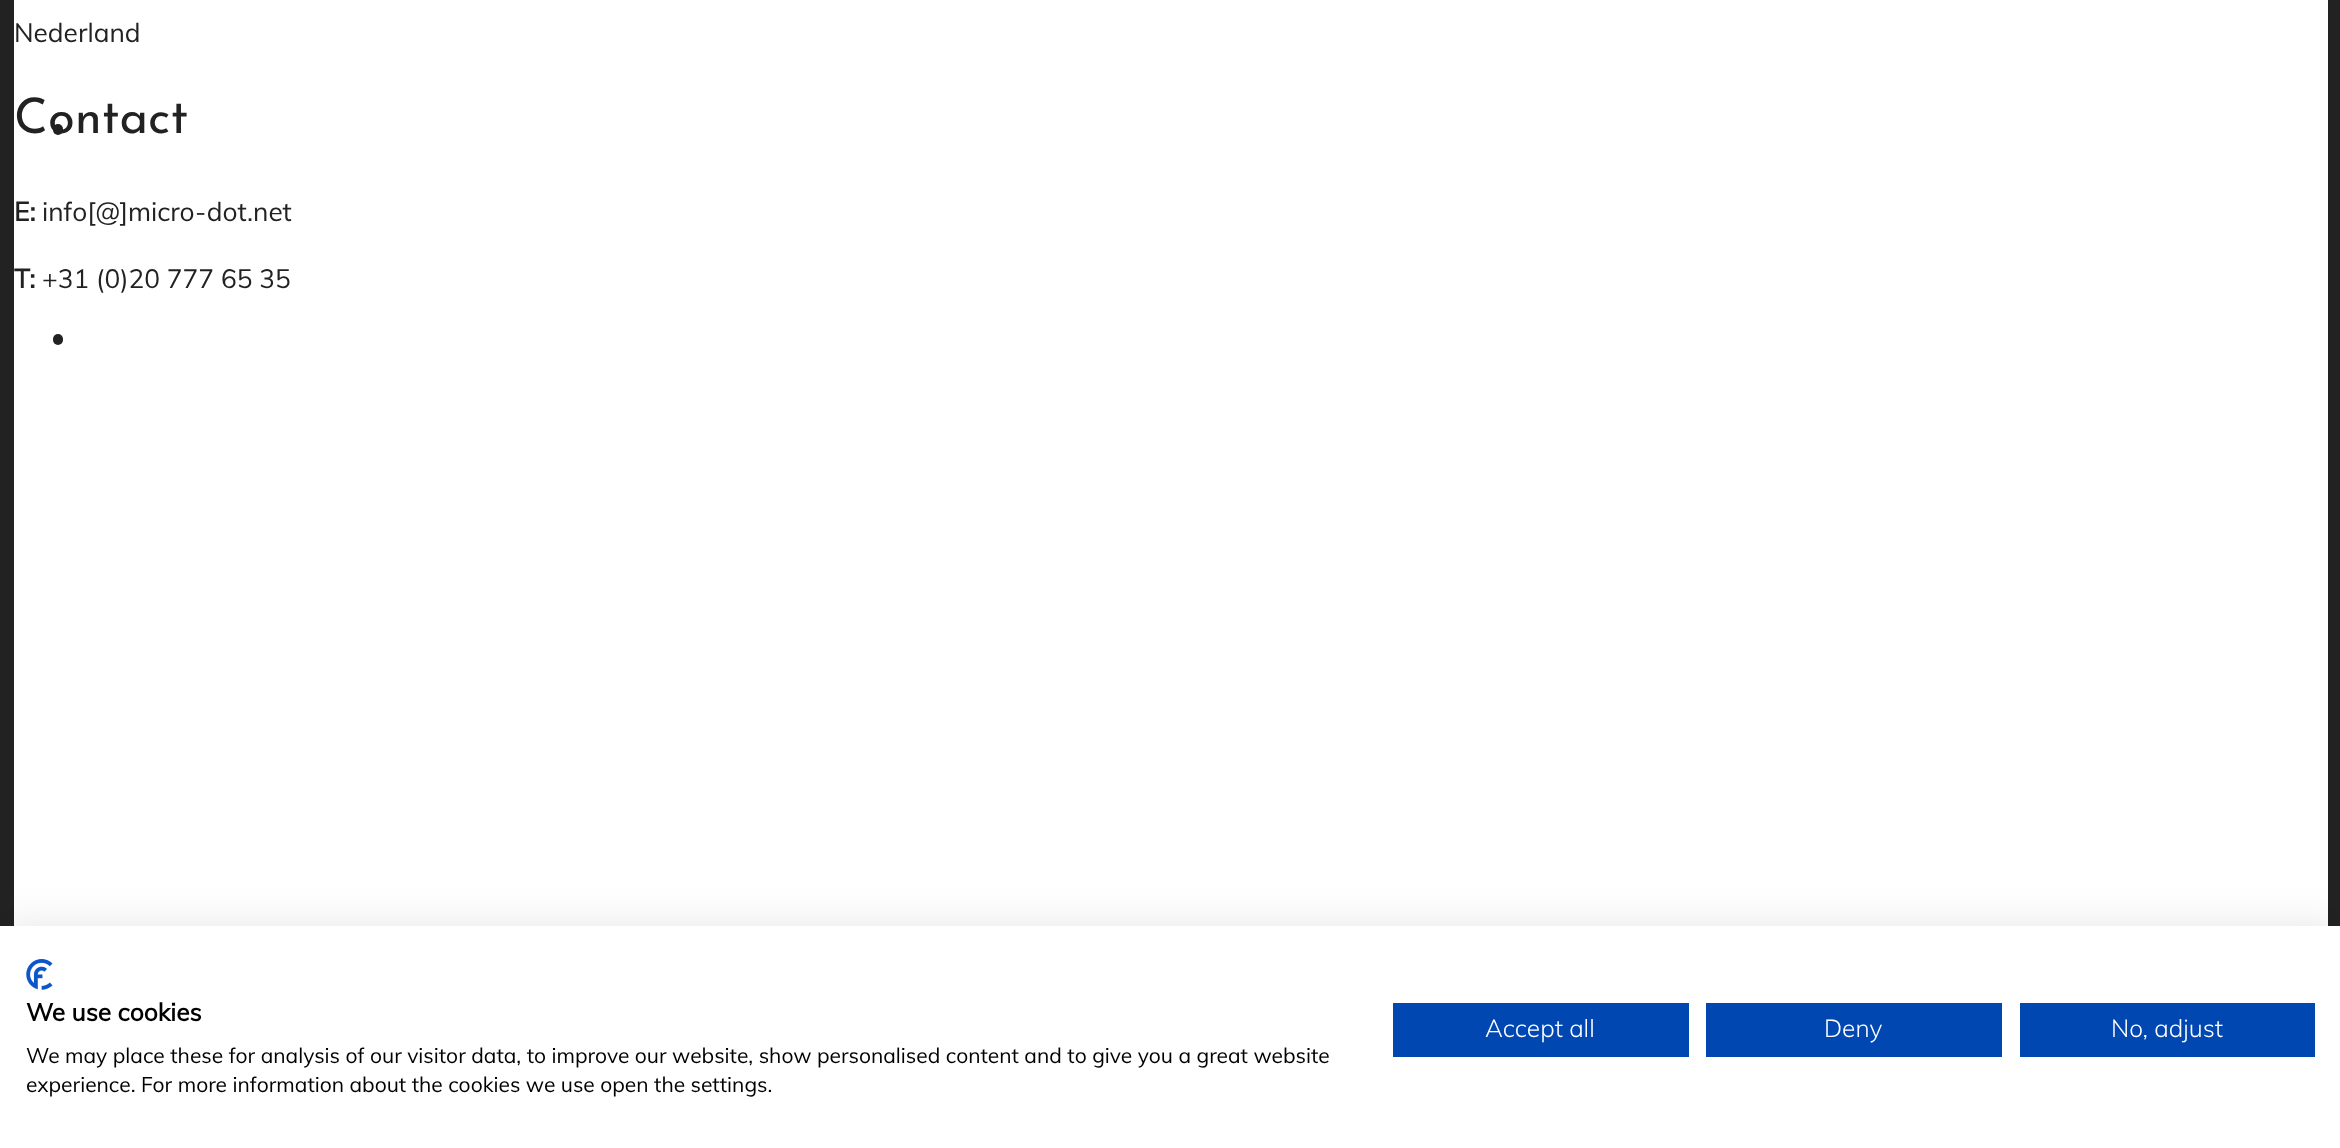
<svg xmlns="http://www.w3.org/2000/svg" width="2340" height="1148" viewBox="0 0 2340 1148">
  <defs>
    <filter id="blur1" x="-50%" y="-200%" width="200%" height="500%"><feGaussianBlur stdDeviation="21"/></filter>
  </defs>
  <rect width="100%" height="100%" fill="#222222"/>
  <rect x="14" y="0" width="2314" height="926" fill="#ffffff"/>
  <text x="14" y="42" font-family="Muli" font-size="26.25" fill="#222222">Nederland</text>
  <rect x="53" y="124" width="10" height="11" rx="5" fill="#222222"/>
  <text x="14" y="133" font-family="Josefin Sans" font-size="49" fill="#222222">Contact</text>
  <text x="14" y="221" font-family="Muli" font-size="26.25" font-weight="bold" fill="#222222">E:</text>
  <text x="42" y="221" font-family="Muli" font-size="26.25" fill="#222222">info[@]micro-dot.net</text>
  <text x="14" y="288" font-family="Muli" font-size="26.25" font-weight="bold" fill="#222222">T:</text>
  <text x="42" y="288" font-family="Muli" font-size="26.25" fill="#222222">+31 (0)20 777 65 35</text>
  <rect x="53" y="334" width="10" height="11" rx="5" fill="#222222"/>
  <rect x="0" y="926" width="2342" height="222" fill="#000000" fill-opacity="0.1" filter="url(#blur1)"/>
  <rect x="0" y="926" width="2340" height="222" fill="#ffffff"/>
  <image x="26" y="959" width="27" height="31" href="img1.png"/>
  <text x="26" y="1021" font-family="Muli" font-size="24.5" font-weight="bold" fill="#000000">We use cookies</text>
  <text x="26" y="1063" font-family="Muli" font-size="21" fill="#000000">We may place these for analysis of our visitor data, to improve our website, show personalised content and to give you a great website</text>
  <text x="26" y="1092" font-family="Muli" font-size="21" fill="#000000">experience. For more information about the cookies we use open the settings.</text>
  <rect x="1393" y="1003" width="296" height="54" fill="#0047b2"/>
  <text x="1485" y="1037" font-family="Muli" font-size="24.5" font-weight="300" fill="#ffffff">Accept all</text>
  <rect x="1706" y="1003" width="296" height="54" fill="#0047b2"/>
  <text x="1824" y="1037" font-family="Muli" font-size="24.5" font-weight="300" fill="#ffffff">Deny</text>
  <rect x="2020" y="1003" width="295" height="54" fill="#0047b2"/>
  <text x="2111" y="1037" font-family="Muli" font-size="24.5" font-weight="300" fill="#ffffff">No, adjust</text>
</svg>
